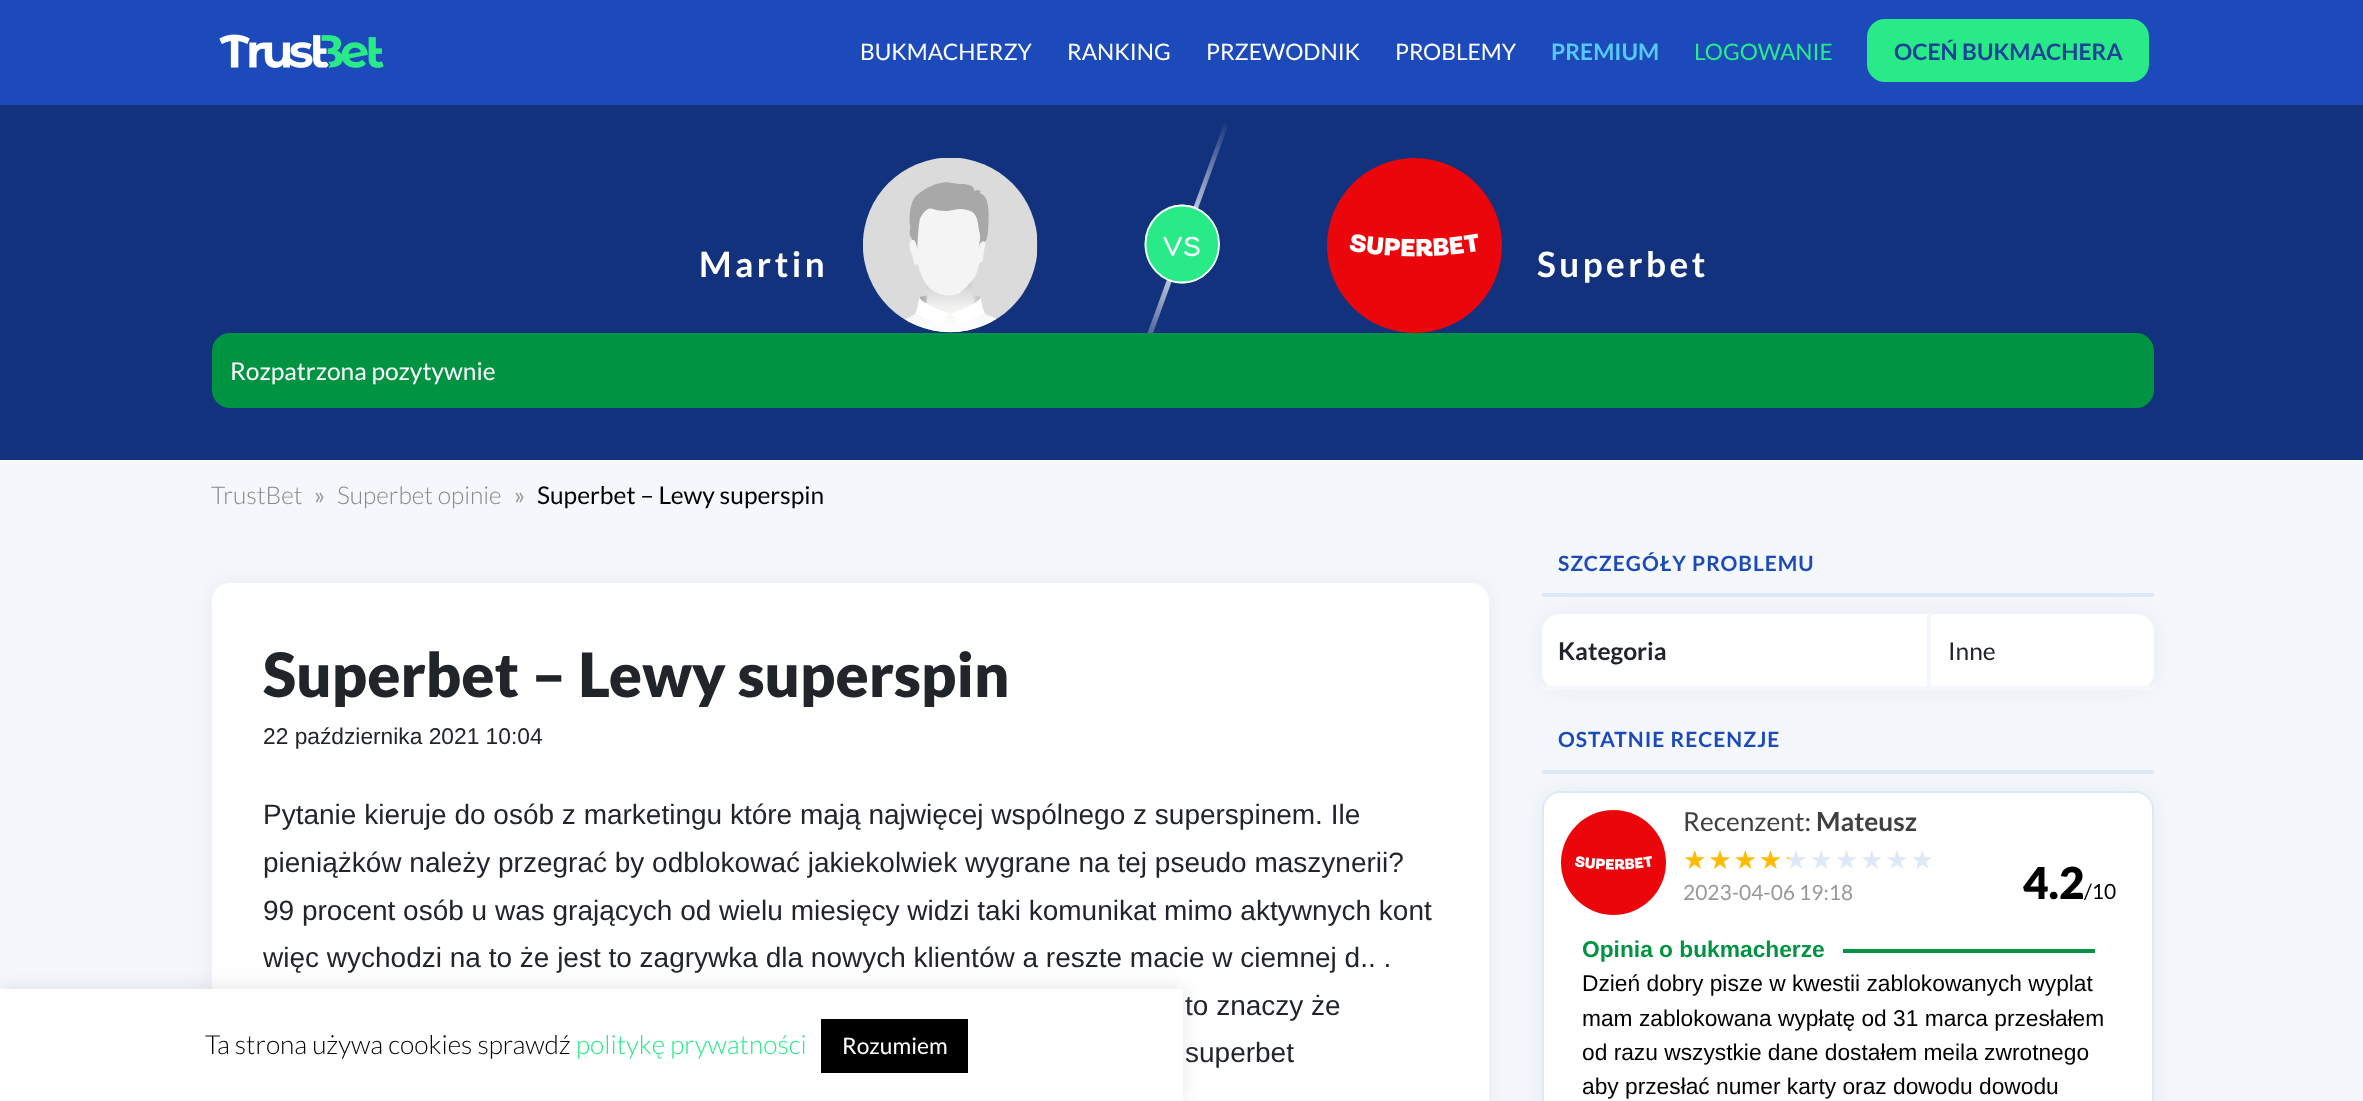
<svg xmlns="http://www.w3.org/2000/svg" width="2363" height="1101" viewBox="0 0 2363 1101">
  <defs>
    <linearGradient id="g1" gradientUnits="userSpaceOnUse" x1="1683" y1="860" x2="1935" y2="860"><stop offset="0.42" stop-color="#ffbb00"/><stop offset="0.42" stop-color="#dfe8f6"/></linearGradient>
    <linearGradient id="g2" gradientUnits="userSpaceOnUse" x1="1102" y1="340" x2="1262" y2="150"><stop offset="0.02" stop-color="#13327d"/><stop offset="0.5" stop-color="#ffffff"/><stop offset="1" stop-color="#13327d"/></linearGradient>
    <filter id="blur1" x="-50%" y="-200%" width="200%" height="500%"><feGaussianBlur stdDeviation="13"/></filter>
    <filter id="blur2" x="-50%" y="-200%" width="200%" height="500%"><feGaussianBlur stdDeviation="9"/></filter>
  </defs>
  <rect width="100%" height="100%" fill="#f4f7fc"/>
  <rect x="0" y="0" width="2363" height="105" fill="#1c4aba"/>
  <image x="219" y="34" width="165" height="34" href="img1.png"/>
  <text x="860" y="60" font-family="Lato" font-size="22.75" fill="#ffffff">BUKMACHERZY</text>
  <text x="1067" y="60" font-family="Lato" font-size="22.75" fill="#ffffff">RANKING</text>
  <text x="1206" y="60" font-family="Lato" font-size="22.75" fill="#ffffff">PRZEWODNIK</text>
  <text x="1395" y="60" font-family="Lato" font-size="22.75" fill="#ffffff">PROBLEMY</text>
  <text x="1551" y="60" font-family="Lato" font-size="22.75" font-weight="bold" fill="#55c9f9">PREMIUM</text>
  <text x="1694" y="60" font-family="Lato" font-size="22.75" fill="#28eb88">LOGOWANIE</text>
  <rect x="1867" y="19" width="282" height="63" rx="18" fill="#28eb88"/>
  <text x="1894" y="60" font-family="Lato" font-size="22.75" font-weight="bold" fill="#1d4296">OCEŃ BUKMACHERA</text>
  <rect x="0" y="105" width="2363" height="355" fill="#13327d"/>
  <path d="M1225 121L1229 123L1140 369L1135 367Z" fill="url(#g2)"/>
  <ellipse cx="1182" cy="244" rx="37.5" ry="39.5" fill="#28eb88"/>
  <path d="M1182 205.5C1202.5 205.5 1219 223 1219 244C1219 265.5 1202.5 282.5 1182 282.5C1162 282.5 1145.5 265.5 1145.5 244C1145.5 223 1162 205.5 1182 205.5Z" fill="none" stroke="#ffffff" stroke-width="1.8"/>
  <text x="1163" y="256" font-family="Comfortaa" font-size="35" fill="#ffffff">vs</text>
  <text x="699" y="277" font-family="Lato" font-size="35" font-weight="bold" letter-spacing="3.5" fill="#ffffff">Martin</text>
  <image x="863" y="158" width="175" height="175" href="img2.png"/>
  <circle cx="1414.5" cy="245.5" r="87.5" fill="#ea060a"/>
  <image x="1349" y="233" width="130" height="24" href="img3.png"/>
  <text x="1537" y="277" font-family="Lato" font-size="35" font-weight="bold" letter-spacing="3.5" fill="#ffffff">Superbet</text>
  <rect x="213" y="334" width="1940" height="73" rx="17" fill="#009442" stroke="#009442" stroke-width="2"/>
  <text x="230" y="380" font-family="Lato" font-size="24.5" fill="#ffffff">Rozpatrzona pozytywnie</text>
  <text x="211" y="504" font-family="Lato" font-size="24.5" font-weight="300" fill="#888888">TrustBet</text>
  <text x="314" y="504" font-family="Lato" font-size="24.5" fill="#999999">»</text>
  <text x="337" y="504" font-family="Lato" font-size="24.5" font-weight="300" fill="#888888">Superbet opinie</text>
  <text x="514" y="504" font-family="Lato" font-size="24.5" fill="#999999">»</text>
  <text x="537" y="504" font-family="Lato" font-size="24.5" fill="#000000">Superbet – Lewy superspin</text>
  <rect x="212" y="583" width="1277" height="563" rx="18" fill="#000000" fill-opacity="0.05" filter="url(#blur1)"/>
  <rect x="212" y="583" width="1277" height="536" rx="18" fill="#ffffff"/>
  <text x="263" y="697" font-family="Lato" font-size="61.25" font-weight="900" fill="#212529">Superbet – Lewy superspin</text>
  <text x="263" y="744" font-family="Liberation Sans" font-size="22.75" fill="#212529">22 października 2021 10:04</text>
  <text x="263" y="824" font-family="Liberation Sans" font-size="28" fill="#212529">Pytanie kieruje do osób z marketingu które mają najwięcej wspólnego z superspinem. Ile</text>
  <text x="263" y="872" font-family="Liberation Sans" font-size="28" fill="#212529">pieniążków należy przegrać by odblokować jakiekolwiek wygrane na tej pseudo maszynerii?</text>
  <text x="263" y="920" font-family="Liberation Sans" font-size="28" fill="#212529">99 procent osób u was grających od wielu miesięcy widzi taki komunikat mimo aktywnych kont</text>
  <text x="263" y="967" font-family="Liberation Sans" font-size="28" fill="#212529">więc wychodzi na to że jest to zagrywka dla nowych klientów a reszte macie w ciemnej d.. .</text>
  <text x="1185" y="1015" font-family="Liberation Sans" font-size="28" fill="#212529">to znaczy że</text>
  <text x="1185" y="1062" font-family="Liberation Sans" font-size="28" fill="#212529">superbet</text>
  <text x="1558" y="571" font-family="Lato" font-size="21" font-weight="bold" letter-spacing="1" fill="#1c4aba">SZCZEGÓŁY PROBLEMU</text>
  <rect x="1542" y="614" width="612" height="76" rx="18" fill="#000000" fill-opacity="0.05" filter="url(#blur1)"/>
  <rect x="1542" y="593" width="612" height="4" fill="#dfe8f6"/>
  <rect x="1542" y="614" width="612" height="76" rx="18" fill="#ffffff"/>
  <rect x="1540" y="686" width="616" height="4" fill="#f4f7fc"/>
  <rect x="1927" y="613" width="4" height="77" fill="#f4f7fc"/>
  <text x="1558" y="660" font-family="Lato" font-size="24.5" font-weight="bold" fill="#212529">Kategoria</text>
  <text x="1948" y="660" font-family="Lato" font-size="24.5" fill="#212529">Inne</text>
  <text x="1558" y="747" font-family="Lato" font-size="21" font-weight="bold" letter-spacing="1" fill="#1c4aba">OSTATNIE RECENZJE</text>
  <rect x="1542" y="770" width="612" height="4" fill="#dfe8f6"/>
  <rect x="1542" y="791" width="612" height="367" rx="18" fill="#000000" fill-opacity="0.05" filter="url(#blur1)"/>
  <rect x="1543" y="792" width="610" height="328" rx="17" fill="#ffffff" stroke="#dfe8f6" stroke-width="2"/>
  <circle cx="1613.5" cy="862.5" r="52.5" fill="#ea060a"/>
  <image x="1575" y="855" width="77" height="15" href="img4.png"/>
  <text x="1683" y="831" font-family="Lato" font-size="26.25" fill="#404040">Recenzent:</text>
  <text x="1816" y="831" font-family="Lato" font-size="26.25" font-weight="bold" fill="#404040">Mateusz</text>
  <text x="1683" y="869" font-family="DejaVu Sans" font-size="26.25" letter-spacing="1.75" fill="url(#g1)">★★★★★★★★★★</text>
  <text x="1683" y="900" font-family="Lato" font-size="21" fill="#999999">2023-04-06 19:18</text>
  <text x="2023" y="899" font-family="Lato" font-size="44" font-weight="900" fill="#000000">4.2</text>
  <text x="2084" y="899" font-family="Lato" font-size="21" fill="#000000">/10</text>
  <text x="1582" y="957" font-family="Liberation Sans" font-size="22.75" font-weight="bold" fill="#009442">Opinia o bukmacherze</text>
  <rect x="1843" y="949" width="252" height="4" fill="#009442"/>
  <text x="1582" y="991" font-family="Liberation Sans" font-size="22.75" fill="#000000">Dzień dobry pisze w kwestii zablokowanych wyplat</text>
  <text x="1582" y="1026" font-family="Liberation Sans" font-size="22.75" fill="#000000">mam zablokowana wypłatę od 31 marca przesłałem</text>
  <text x="1582" y="1060" font-family="Liberation Sans" font-size="22.75" fill="#000000">od razu wszystkie dane dostałem meila zwrotnego</text>
  <text x="1582" y="1094" font-family="Liberation Sans" font-size="22.75" fill="#000000">aby przesłać numer karty oraz dowodu dowodu</text>
  <rect x="0" y="987" width="1183" height="114" fill="#acabab" fill-opacity="0.3" filter="url(#blur2)"/>
  <rect x="0" y="989" width="1183" height="112" fill="#ffffff"/>
  <text x="205" y="1054" font-family="Lato" font-size="26.25" font-weight="300" fill="#000000">Ta strona używa cookies sprawdź</text>
  <text x="576" y="1054" font-family="Lato" font-size="26.25" font-weight="300" fill="#28eb88">politykę prywatności</text>
  <rect x="821" y="1019" width="147" height="54" fill="#000000"/>
  <text x="842" y="1054" font-family="Lato" font-size="22.75" fill="#ffffff">Rozumiem</text>
</svg>
